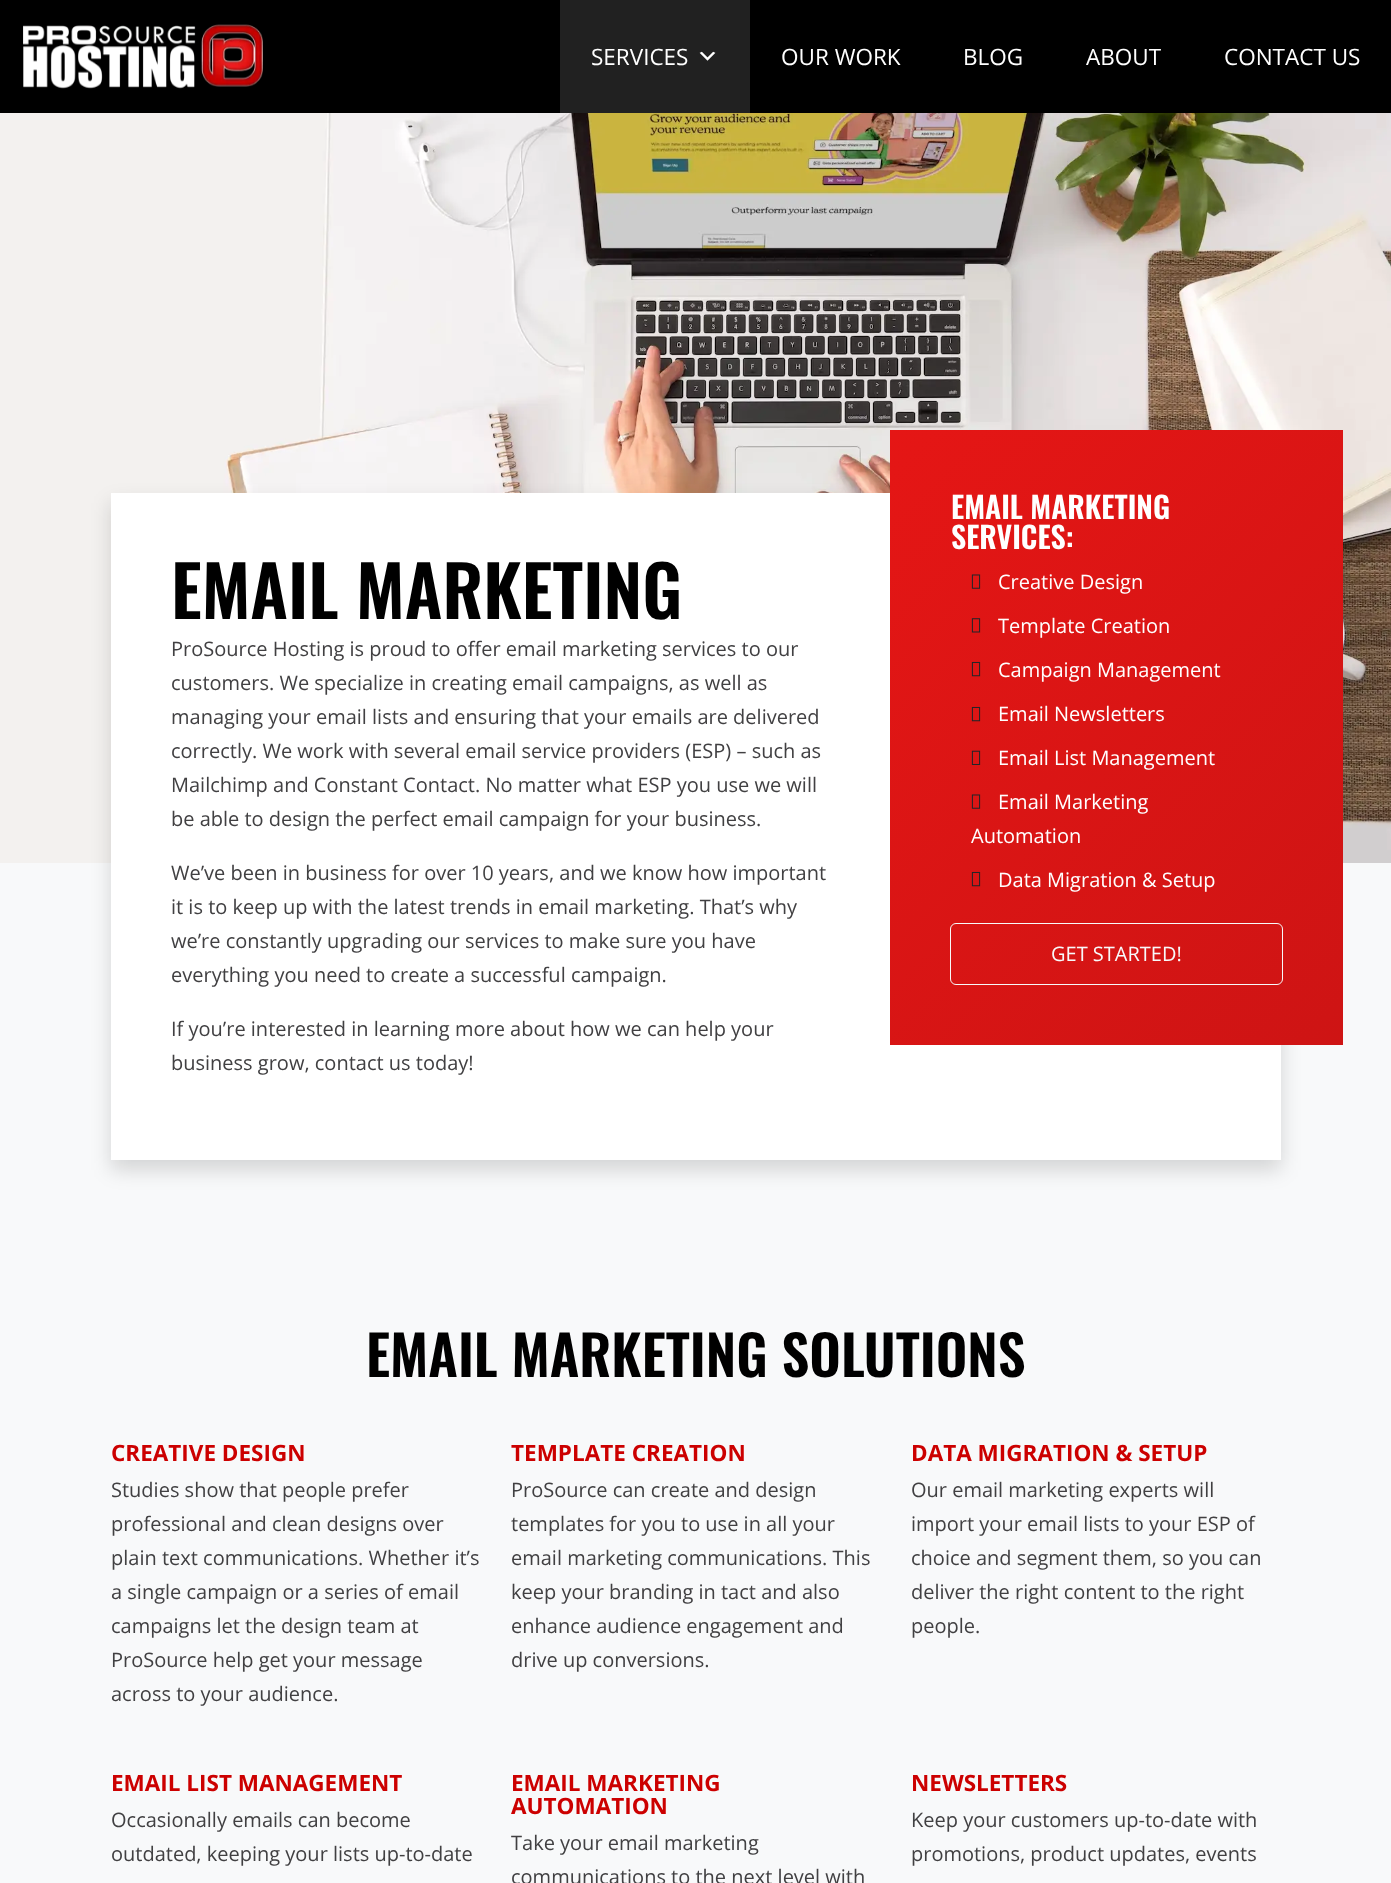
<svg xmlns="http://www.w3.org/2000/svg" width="1391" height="1883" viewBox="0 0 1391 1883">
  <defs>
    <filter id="blur1" x="-50%" y="-200%" width="200%" height="500%"><feGaussianBlur stdDeviation="10"/></filter>
    <linearGradient id="g1" gradientUnits="userSpaceOnUse" x1="849" y1="471" x2="1383" y2="1004"><stop offset="0" stop-color="#e51615"/><stop offset="1" stop-color="#ce1414"/></linearGradient>
  </defs>
  <rect width="100%" height="100%" fill="#ffffff"/>
  <rect x="0" y="0" width="1391" height="113" fill="#000000"/>
  <image x="23" y="24" width="240" height="65" href="img1.png"/>
  <rect x="560" y="0" width="190" height="113" fill="#212121"/>
  <text x="591" y="65" font-family="Open Sans" font-size="22.5" fill="#ffffff">SERVICES</text>
  <image x="699" y="51" width="17" height="10" href="img2.png"/>
  <text x="781" y="65" font-family="Open Sans" font-size="22.5" fill="#ffffff">OUR WORK</text>
  <text x="963" y="65" font-family="Open Sans" font-size="22.5" fill="#ffffff">BLOG</text>
  <text x="1086" y="65" font-family="Open Sans" font-size="22.5" fill="#ffffff">ABOUT</text>
  <text x="1224" y="65" font-family="Open Sans" font-size="22.5" fill="#ffffff">CONTACT US</text>
  <image x="0" y="113" width="1391" height="750" href="img3.png"/>
  <rect x="0" y="863" width="1391" height="1020" fill="#f8f9fa"/>
  <rect x="111" y="503" width="1170" height="667" fill="#000000" fill-opacity="0.15" filter="url(#blur1)"/>
  <rect x="111" y="493" width="1170" height="667" fill="#ffffff"/>
  <text x="171" y="619" font-family="Oswald" font-size="70" font-weight="600" fill="#000000">EMAIL MARKETING</text>
  <text x="171" y="656" font-family="Open Sans" font-size="20" fill="#414042">ProSource Hosting is proud to offer email marketing services to our</text>
  <text x="171" y="690" font-family="Open Sans" font-size="20" fill="#414042">customers. We specialize in creating email campaigns, as well as</text>
  <text x="171" y="724" font-family="Open Sans" font-size="20" fill="#414042">managing your email lists and ensuring that your emails are delivered</text>
  <text x="171" y="758" font-family="Open Sans" font-size="20" fill="#414042">correctly. We work with several email service providers (ESP) – such as</text>
  <text x="171" y="792" font-family="Open Sans" font-size="20" fill="#414042">Mailchimp and Constant Contact. No matter what ESP you use we will</text>
  <text x="171" y="826" font-family="Open Sans" font-size="20" fill="#414042">be able to design the perfect email campaign for your business.</text>
  <text x="171" y="880" font-family="Open Sans" font-size="20" fill="#414042">We’ve been in business for over 10 years, and we know how important</text>
  <text x="171" y="914" font-family="Open Sans" font-size="20" fill="#414042">it is to keep up with the latest trends in email marketing. That’s why</text>
  <text x="171" y="948" font-family="Open Sans" font-size="20" fill="#414042">we’re constantly upgrading our services to make sure you have</text>
  <text x="171" y="982" font-family="Open Sans" font-size="20" fill="#414042">everything you need to create a successful campaign.</text>
  <text x="171" y="1036" font-family="Open Sans" font-size="20" fill="#414042">If you’re interested in learning more about how we can help your</text>
  <text x="171" y="1070" font-family="Open Sans" font-size="20" fill="#414042">business grow, contact us today!</text>
  <rect x="890" y="430" width="453" height="615" fill="url(#g1)"/>
  <text x="951" y="519" font-family="Oswald" font-size="30" font-weight="600" fill="#ffffff">EMAIL MARKETING</text>
  <text x="951" y="549" font-family="Oswald" font-size="30" font-weight="600" fill="#ffffff">SERVICES:</text>
  <image x="971" y="574" width="10" height="15" href="img4.png"/>
  <text x="998" y="589" font-family="Open Sans" font-size="20" fill="#ffffff">Creative Design</text>
  <image x="971" y="618" width="10" height="15" href="img5.png"/>
  <text x="998" y="633" font-family="Open Sans" font-size="20" fill="#ffffff">Template Creation</text>
  <image x="971" y="661" width="10" height="16" href="img6.png"/>
  <text x="998" y="677" font-family="Open Sans" font-size="20" fill="#ffffff">Campaign Management</text>
  <image x="971" y="706" width="10" height="16" href="img7.png"/>
  <text x="998" y="721" font-family="Open Sans" font-size="20" fill="#ffffff">Email Newsletters</text>
  <image x="971" y="750" width="10" height="15" href="img8.png"/>
  <text x="998" y="765" font-family="Open Sans" font-size="20" fill="#ffffff">Email List Management</text>
  <image x="971" y="794" width="10" height="15" href="img9.png"/>
  <text x="998" y="809" font-family="Open Sans" font-size="20" fill="#ffffff">Email Marketing</text>
  <text x="971" y="843" font-family="Open Sans" font-size="20" fill="#ffffff">Automation</text>
  <image x="971" y="871" width="10" height="16" href="img10.png"/>
  <text x="998" y="887" font-family="Open Sans" font-size="20" fill="#ffffff">Data Migration &amp; Setup</text>
  <rect x="950.5" y="923.5" width="332" height="61" rx="5.5" fill="none" stroke="#f8f9fa"/>
  <text x="1051" y="961" font-family="Open Sans" font-size="20" fill="#f8f9fa">GET STARTED!</text>
  <text x="366" y="1377" font-family="Oswald" font-size="55" font-weight="600" fill="#000000">EMAIL MARKETING SOLUTIONS</text>
  <text x="111" y="1461" font-family="Open Sans" font-size="22.5" font-weight="bold" fill="#cc0000">CREATIVE DESIGN</text>
  <text x="111" y="1497" font-family="Open Sans" font-size="20" fill="#414042">Studies show that people prefer</text>
  <text x="111" y="1531" font-family="Open Sans" font-size="20" fill="#414042">professional and clean designs over</text>
  <text x="111" y="1565" font-family="Open Sans" font-size="20" fill="#414042">plain text communications. Whether it’s</text>
  <text x="111" y="1599" font-family="Open Sans" font-size="20" fill="#414042">a single campaign or a series of email</text>
  <text x="111" y="1633" font-family="Open Sans" font-size="20" fill="#414042">campaigns let the design team at</text>
  <text x="111" y="1667" font-family="Open Sans" font-size="20" fill="#414042">ProSource help get your message</text>
  <text x="111" y="1701" font-family="Open Sans" font-size="20" fill="#414042">across to your audience.</text>
  <text x="511" y="1461" font-family="Open Sans" font-size="22.5" font-weight="bold" fill="#cc0000">TEMPLATE CREATION</text>
  <text x="511" y="1497" font-family="Open Sans" font-size="20" fill="#414042">ProSource can create and design</text>
  <text x="511" y="1531" font-family="Open Sans" font-size="20" fill="#414042">templates for you to use in all your</text>
  <text x="511" y="1565" font-family="Open Sans" font-size="20" fill="#414042">email marketing communications. This</text>
  <text x="511" y="1599" font-family="Open Sans" font-size="20" fill="#414042">keep your branding in tact and also</text>
  <text x="511" y="1633" font-family="Open Sans" font-size="20" fill="#414042">enhance audience engagement and</text>
  <text x="511" y="1667" font-family="Open Sans" font-size="20" fill="#414042">drive up conversions.</text>
  <text x="911" y="1461" font-family="Open Sans" font-size="22.5" font-weight="bold" fill="#cc0000">DATA MIGRATION &amp; SETUP</text>
  <text x="911" y="1497" font-family="Open Sans" font-size="20" fill="#414042">Our email marketing experts will</text>
  <text x="911" y="1531" font-family="Open Sans" font-size="20" fill="#414042">import your email lists to your ESP of</text>
  <text x="911" y="1565" font-family="Open Sans" font-size="20" fill="#414042">choice and segment them, so you can</text>
  <text x="911" y="1599" font-family="Open Sans" font-size="20" fill="#414042">deliver the right content to the right</text>
  <text x="911" y="1633" font-family="Open Sans" font-size="20" fill="#414042">people.</text>
  <text x="111" y="1791" font-family="Open Sans" font-size="22.5" font-weight="bold" fill="#cc0000">EMAIL LIST MANAGEMENT</text>
  <text x="111" y="1827" font-family="Open Sans" font-size="20" fill="#414042">Occasionally emails can become</text>
  <text x="111" y="1861" font-family="Open Sans" font-size="20" fill="#414042">outdated, keeping your lists up-to-date</text>
  <text x="511" y="1791" font-family="Open Sans" font-size="22.5" font-weight="bold" fill="#cc0000">EMAIL MARKETING</text>
  <text x="511" y="1814" font-family="Open Sans" font-size="22.5" font-weight="bold" fill="#cc0000">AUTOMATION</text>
  <text x="511" y="1850" font-family="Open Sans" font-size="20" fill="#414042">Take your email marketing</text>
  <text x="511" y="1884" font-family="Open Sans" font-size="20" fill="#414042">communications to the next level with</text>
  <text x="911" y="1791" font-family="Open Sans" font-size="22.5" font-weight="bold" fill="#cc0000">NEWSLETTERS</text>
  <text x="911" y="1827" font-family="Open Sans" font-size="20" fill="#414042">Keep your customers up-to-date with</text>
  <text x="911" y="1861" font-family="Open Sans" font-size="20" fill="#414042">promotions, product updates, events</text>
</svg>
